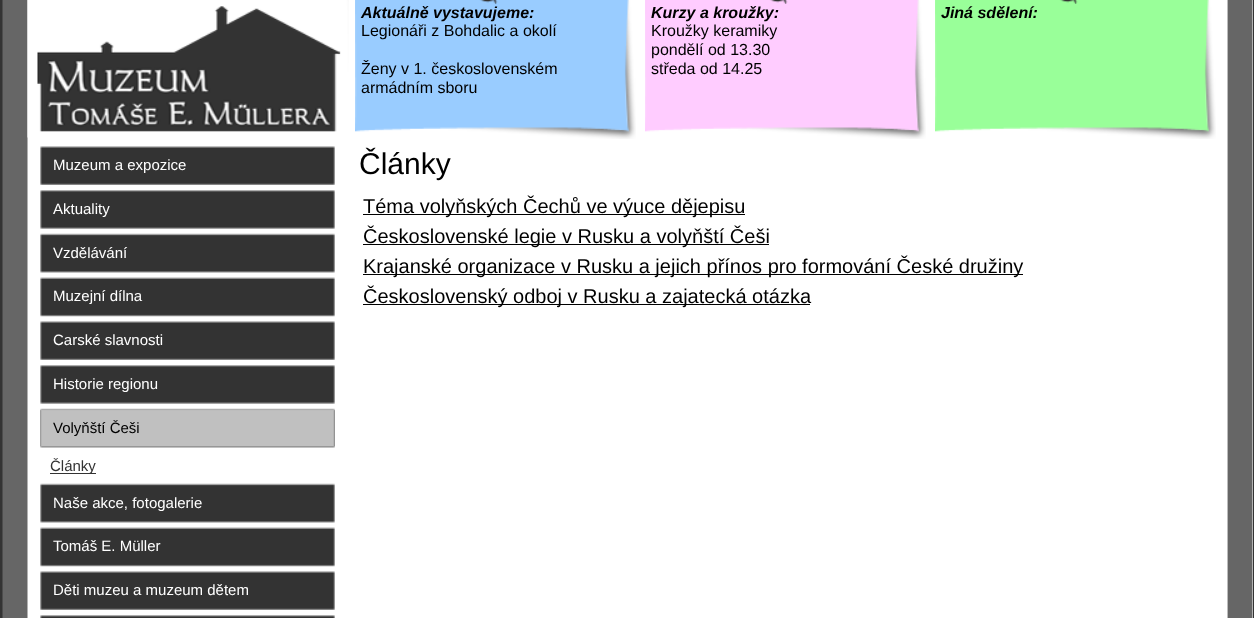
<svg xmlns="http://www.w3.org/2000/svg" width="1254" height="618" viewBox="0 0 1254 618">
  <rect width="100%" height="100%" fill="#333333"/>
  <rect x="1252" y="0" width="1" height="618" fill="#ffffff"/>
  <image x="2" y="0" width="1251" height="618" href="img1.png"/>
  <image x="27" y="0" width="322" height="138" href="img2.png"/>
  <image x="355" y="0" width="281" height="139" href="img3.png"/>
  <text x="361" y="18" font-family="Liberation Sans" font-size="16" font-weight="bold" font-style="italic" fill="#000000">Aktuálně vystavujeme:</text>
  <text x="361" y="36" font-family="Liberation Sans" font-size="16" fill="#000000">Legionáři z Bohdalic a okolí</text>
  <text x="361" y="74" font-family="Liberation Sans" font-size="16" fill="#000000">Ženy v 1. československém</text>
  <text x="361" y="93" font-family="Liberation Sans" font-size="16" fill="#000000">armádním sboru</text>
  <image x="645" y="0" width="281" height="139" href="img4.png"/>
  <text x="651" y="18" font-family="Liberation Sans" font-size="16" font-weight="bold" font-style="italic" fill="#000000">Kurzy a kroužky:</text>
  <text x="651" y="36" font-family="Liberation Sans" font-size="16" fill="#000000">Kroužky keramiky</text>
  <text x="651" y="55" font-family="Liberation Sans" font-size="16" fill="#000000">pondělí od 13.30</text>
  <text x="651" y="74" font-family="Liberation Sans" font-size="16" fill="#000000">středa od 14.25</text>
  <image x="935" y="0" width="281" height="139" href="img5.png"/>
  <text x="941" y="18" font-family="Liberation Sans" font-size="16" font-weight="bold" font-style="italic" fill="#000000">Jiná sdělení:</text>
  <image x="40" y="146" width="295" height="39" href="img6.png"/>
  <text x="53" y="170" font-family="Liberation Sans" font-size="15" fill="#ffffff">Muzeum a expozice</text>
  <image x="40" y="190" width="295" height="39" href="img7.png"/>
  <text x="53" y="214" font-family="Liberation Sans" font-size="15" fill="#ffffff">Aktuality</text>
  <image x="40" y="233" width="295" height="40" href="img8.png"/>
  <text x="53" y="258" font-family="Liberation Sans" font-size="15" fill="#ffffff">Vzdělávání</text>
  <image x="40" y="277" width="295" height="40" href="img9.png"/>
  <text x="53" y="301" font-family="Liberation Sans" font-size="15" fill="#ffffff">Muzejní dílna</text>
  <image x="40" y="321" width="295" height="39" href="img6.png"/>
  <text x="53" y="345" font-family="Liberation Sans" font-size="15" fill="#ffffff">Carské slavnosti</text>
  <image x="40" y="365" width="295" height="39" href="img10.png"/>
  <text x="53" y="389" font-family="Liberation Sans" font-size="15" fill="#ffffff">Historie regionu</text>
  <image x="40" y="408" width="295" height="40" href="img11.png"/>
  <text x="53" y="433" font-family="Liberation Sans" font-size="15" fill="#000000">Volyňští Češi</text>
  <rect x="50" y="473" width="46" height="1" fill="#333333"/>
  <text x="50" y="471" font-family="Liberation Sans" font-size="15" fill="#333333">Články</text>
  <image x="40" y="483" width="295" height="40" href="img8.png"/>
  <text x="53" y="508" font-family="Liberation Sans" font-size="15" fill="#ffffff">Naše akce, fotogalerie</text>
  <image x="40" y="527" width="295" height="40" href="img9.png"/>
  <text x="53" y="551" font-family="Liberation Sans" font-size="15" fill="#ffffff">Tomáš E. Müller</text>
  <image x="40" y="571" width="295" height="39" href="img6.png"/>
  <text x="53" y="595" font-family="Liberation Sans" font-size="15" fill="#ffffff">Děti muzeu a muzeum dětem</text>
  <image x="40" y="615" width="295" height="3" href="img12.png"/>
  <text x="359" y="174" font-family="Liberation Sans" font-size="30" fill="#000000">Články</text>
  <rect x="363" y="214" width="382" height="1" fill="#000000"/>
  <text x="363" y="213" font-family="Liberation Sans" font-size="20" fill="#000000">Téma volyňských Čechů ve výuce dějepisu</text>
  <rect x="363" y="244" width="406" height="1" fill="#000000"/>
  <text x="363" y="243" font-family="Liberation Sans" font-size="20" fill="#000000">Československé legie v Rusku a volyňští Češi</text>
  <rect x="363" y="274" width="660" height="1" fill="#000000"/>
  <text x="363" y="273" font-family="Liberation Sans" font-size="20" fill="#000000">Krajanské organizace v Rusku a jejich přínos pro formování České družiny</text>
  <rect x="363" y="304" width="447" height="1" fill="#000000"/>
  <text x="363" y="303" font-family="Liberation Sans" font-size="20" fill="#000000">Československý odboj v Rusku a zajatecká otázka</text>
</svg>
